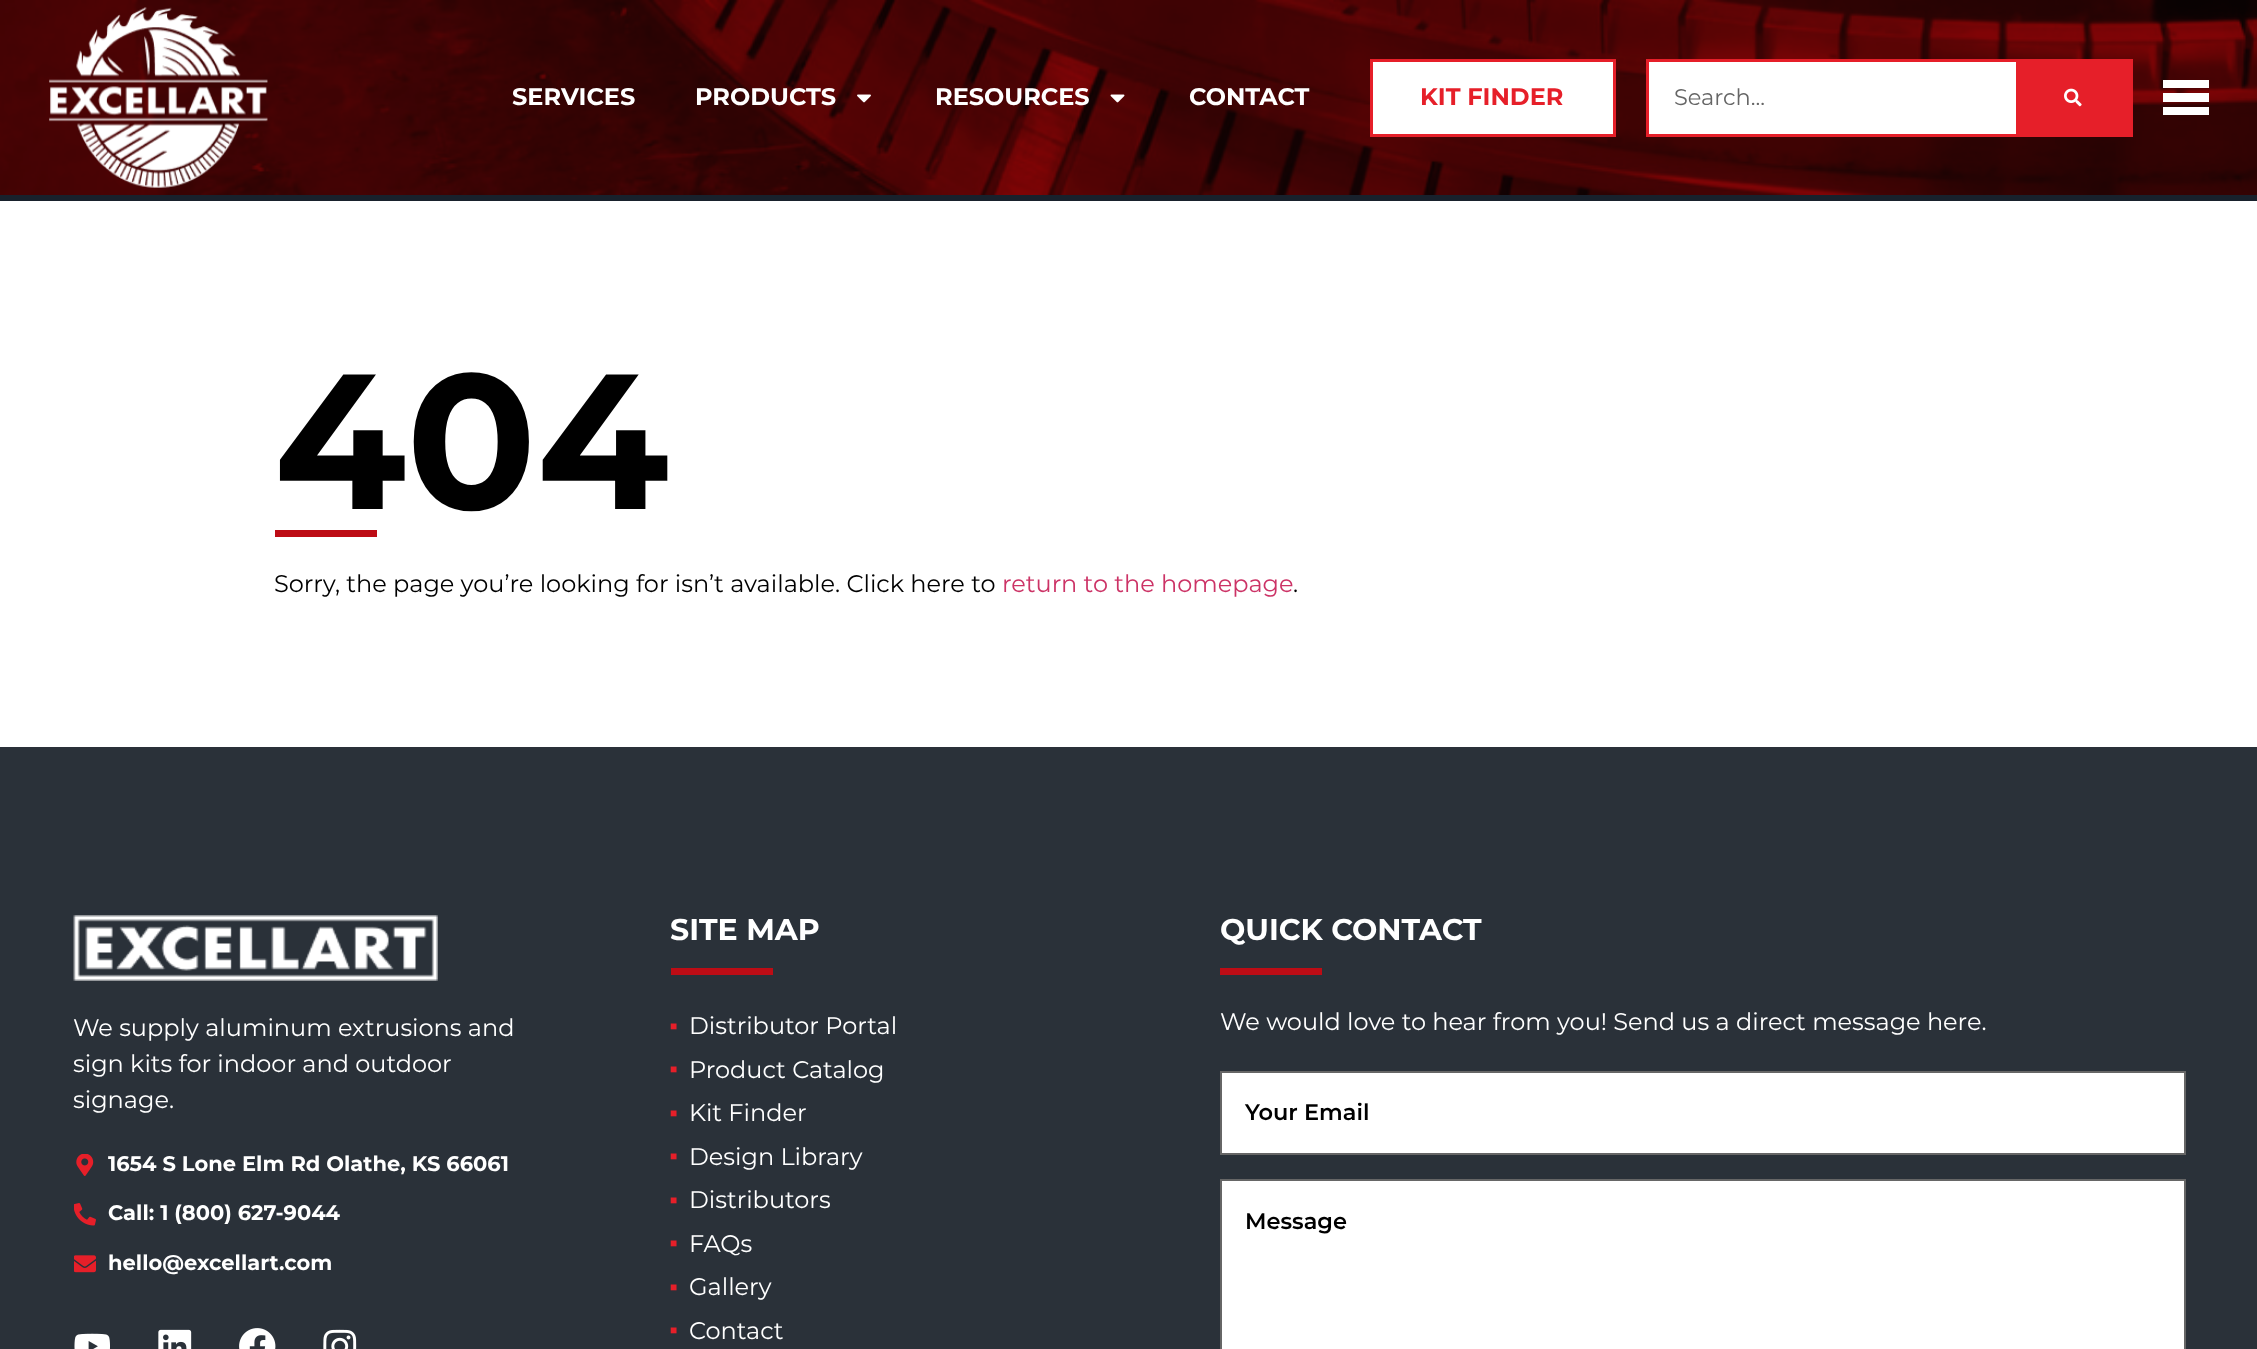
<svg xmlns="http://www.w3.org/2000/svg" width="2257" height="1349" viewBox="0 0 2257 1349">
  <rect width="100%" height="100%" fill="#ffffff"/>
  <image x="0" y="0" width="2257" height="195" href="img1.png"/>
  <image x="49" y="7" width="219" height="181" href="img2.png"/>
  <text x="512" y="105" font-family="Montserrat" font-size="24" font-weight="bold" fill="#ffffff">SERVICES</text>
  <text x="695" y="105" font-family="Montserrat" font-size="24" font-weight="bold" fill="#ffffff">PRODUCTS</text>
  <image x="857" y="94" width="14" height="9" href="img3.png"/>
  <text x="935" y="105" font-family="Montserrat" font-size="24" font-weight="bold" fill="#ffffff">RESOURCES</text>
  <image x="1110" y="94" width="15" height="9" href="img4.png"/>
  <text x="1189" y="105" font-family="Montserrat" font-size="24" font-weight="bold" fill="#ffffff">CONTACT</text>
  <rect x="1371.5" y="60.5" width="243" height="75" fill="#ffffff" stroke="#e61f29" stroke-width="3"/>
  <text x="1420" y="105" font-family="Montserrat" font-size="24" font-weight="bold" fill="#e61f29">KIT FINDER</text>
  <rect x="1649" y="62" width="367" height="72" fill="#ffffff"/>
  <rect x="1647.5" y="60.5" width="484" height="75" fill="none" stroke="#e61f29" stroke-width="3"/>
  <text x="1674" y="105" font-family="Montserrat" font-size="22.5" fill="#666666">Search...</text>
  <rect x="2016" y="62" width="114" height="72" fill="#e61f29"/>
  <image x="2064" y="88" width="18" height="19" href="img5.png"/>
  <rect x="2163" y="80" width="46" height="8" fill="#ffffff"/>
  <rect x="2163" y="93" width="46" height="9" fill="#ffffff"/>
  <rect x="2163" y="107" width="46" height="8" fill="#ffffff"/>
  <rect x="0" y="195" width="2257" height="6" fill="#18212c"/>
  <text x="274" y="509" font-family="Montserrat" font-size="192" font-weight="bold" fill="#000000">404</text>
  <rect x="275" y="530" width="102" height="7" fill="#bd0c15"/>
  <text x="274" y="592" font-family="Montserrat" font-size="24" fill="#000000">Sorry, the page you’re looking for isn’t available. Click here to</text>
  <text x="1002" y="592" font-family="Montserrat" font-size="24" fill="#cc3366">return to the homepage</text>
  <text x="1293" y="592" font-family="Montserrat" font-size="24" fill="#000000">.</text>
  <rect x="0" y="747" width="2257" height="602" fill="#2a3139"/>
  <image x="73" y="915" width="365" height="66" href="img6.png"/>
  <text x="73" y="1036" font-family="Montserrat" font-size="24" fill="#ffffff">We supply aluminum extrusions and</text>
  <text x="73" y="1072" font-family="Montserrat" font-size="24" fill="#ffffff">sign kits for indoor and outdoor</text>
  <text x="73" y="1108" font-family="Montserrat" font-size="24" fill="#ffffff">signage.</text>
  <image x="76" y="1154" width="18" height="22" href="img7.png"/>
  <text x="108" y="1171" font-family="Montserrat" font-size="21" font-weight="bold" fill="#ffffff">1654 S Lone Elm Rd Olathe, KS 66061</text>
  <image x="74" y="1203" width="22" height="23" href="img8.png"/>
  <text x="108" y="1220" font-family="Montserrat" font-size="21" font-weight="bold" fill="#ffffff">Call: 1 (800) 627-9044</text>
  <image x="74" y="1255" width="22" height="18" href="img9.png"/>
  <text x="108" y="1270" font-family="Montserrat" font-size="21" font-weight="bold" fill="#ffffff">hello@excellart.com</text>
  <image x="74" y="1333" width="36" height="16" href="img10.png"/>
  <image x="158" y="1329" width="34" height="20" href="img11.png"/>
  <image x="239" y="1328" width="37" height="21" href="img12.png"/>
  <image x="323" y="1329" width="34" height="20" href="img13.png"/>
  <text x="670" y="940" font-family="Montserrat" font-size="30" font-weight="bold" fill="#ffffff">SITE MAP</text>
  <rect x="671" y="968" width="102" height="7" fill="#bd0c15"/>
  <text x="670" y="1030" font-family="Liberation Sans" font-size="12" fill="#e61f29">■</text>
  <text x="689" y="1034" font-family="Montserrat" font-size="24" fill="#ffffff">Distributor Portal</text>
  <text x="670" y="1073" font-family="Liberation Sans" font-size="12" fill="#e61f29">■</text>
  <text x="689" y="1078" font-family="Montserrat" font-size="24" fill="#ffffff">Product Catalog</text>
  <text x="670" y="1117" font-family="Liberation Sans" font-size="12" fill="#e61f29">■</text>
  <text x="689" y="1121" font-family="Montserrat" font-size="24" fill="#ffffff">Kit Finder</text>
  <text x="670" y="1160" font-family="Liberation Sans" font-size="12" fill="#e61f29">■</text>
  <text x="689" y="1165" font-family="Montserrat" font-size="24" fill="#ffffff">Design Library</text>
  <text x="670" y="1204" font-family="Liberation Sans" font-size="12" fill="#e61f29">■</text>
  <text x="689" y="1208" font-family="Montserrat" font-size="24" fill="#ffffff">Distributors</text>
  <text x="670" y="1247" font-family="Liberation Sans" font-size="12" fill="#e61f29">■</text>
  <text x="689" y="1252" font-family="Montserrat" font-size="24" fill="#ffffff">FAQs</text>
  <text x="670" y="1291" font-family="Liberation Sans" font-size="12" fill="#e61f29">■</text>
  <text x="689" y="1295" font-family="Montserrat" font-size="24" fill="#ffffff">Gallery</text>
  <text x="670" y="1334" font-family="Liberation Sans" font-size="12" fill="#e61f29">■</text>
  <text x="689" y="1339" font-family="Montserrat" font-size="24" fill="#ffffff">Contact</text>
  <text x="1220" y="940" font-family="Montserrat" font-size="30" font-weight="bold" fill="#ffffff">QUICK CONTACT</text>
  <rect x="1220" y="968" width="102" height="7" fill="#bd0c15"/>
  <text x="1220" y="1030" font-family="Montserrat" font-size="24" fill="#ffffff">We would love to hear from you! Send us a direct message here.</text>
  <rect x="1221" y="1072" width="964" height="82" fill="#ffffff" stroke="#666666" stroke-width="2"/>
  <text x="1245" y="1120" font-family="Montserrat" font-size="22.5" font-weight="600" fill="#000000">Your Email</text>
  <rect x="1221" y="1180" width="964" height="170" fill="#ffffff" stroke="#666666" stroke-width="2"/>
  <text x="1245" y="1229" font-family="Montserrat" font-size="22.5" font-weight="600" fill="#000000">Message</text>
</svg>
